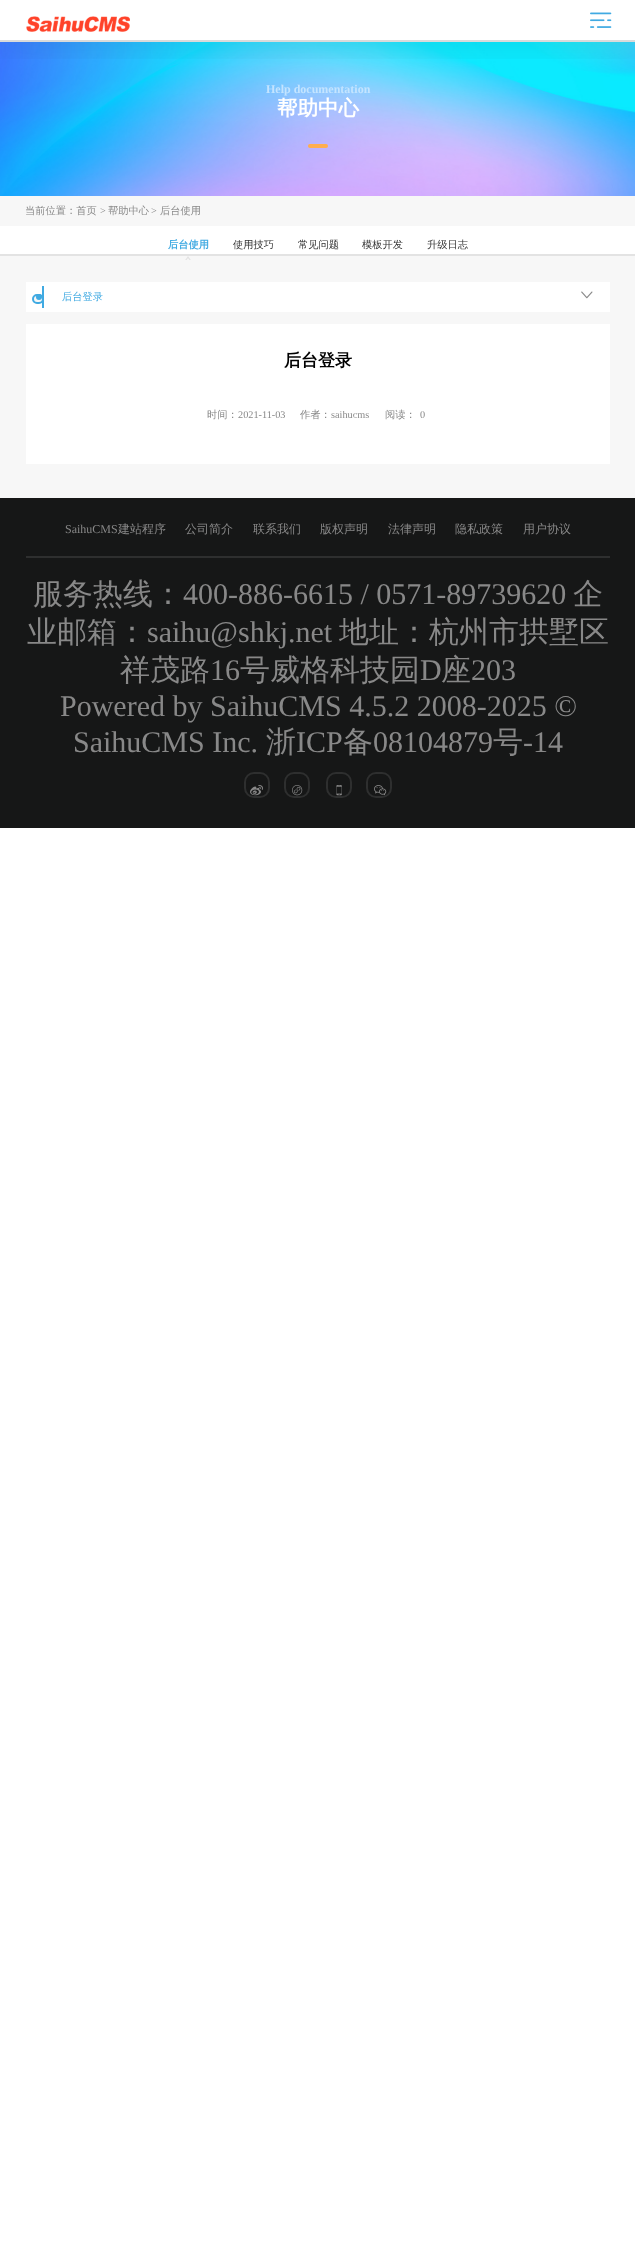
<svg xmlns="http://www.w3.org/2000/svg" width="635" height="2252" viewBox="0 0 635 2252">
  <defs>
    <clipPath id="clip1"><rect x="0" y="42" width="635" height="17"/></clipPath>
    <filter id="blur1" x="-50%" y="-200%" width="200%" height="500%"><feGaussianBlur stdDeviation="20"/></filter>
    <clipPath id="clip2"><rect x="26" y="226" width="584" height="34"/></clipPath>
  </defs>
  <rect width="100%" height="100%" fill="#ffffff"/>
  <image x="0" y="42" width="635" height="154" href="img3.png"/>
  <g clip-path="url(#clip1)">
    <rect x="0" y="0" width="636" height="42" fill="#000000" fill-opacity="0.1" filter="url(#blur1)"/>
  </g>
  <rect x="0" y="40" width="635" height="2" fill="#dadada"/>
  <image x="26" y="16" width="104" height="16" href="img1.png"/>
  <image x="590" y="12" width="22" height="16" href="img2.png"/>
  <text x="266" y="93" font-family="Liberation Serif" font-size="12" font-weight="bold" fill="#c4e4ff">Help documentation</text>
  <text x="277" y="115" font-family="WenQuanYi Zen Hei" font-size="20.5" font-weight="bold" fill="#ffffff">帮助中心</text>
  <rect x="308" y="144" width="20" height="4" rx="2" fill="#ffae4e"/>
  <rect x="0" y="196" width="635" height="30" fill="#f7f7f7"/>
  <text x="25" y="214" font-family="WenQuanYi Zen Hei" font-size="10.25" font-weight="500" fill="#888888">当前位置：首页</text>
  <text x="100" y="214" font-family="Liberation Serif" font-size="10.25" fill="#888888">&gt;</text>
  <text x="108" y="214" font-family="WenQuanYi Zen Hei" font-size="10.25" font-weight="500" fill="#888888">帮助中心</text>
  <text x="151" y="214" font-family="Liberation Serif" font-size="10.25" fill="#888888">&gt;</text>
  <text x="160" y="214" font-family="WenQuanYi Zen Hei" font-size="10.25" font-weight="500" fill="#888888">后台使用</text>
  <rect x="0" y="254" width="635" height="2" fill="#e3e3e3"/>
  <text x="168" y="248" font-family="WenQuanYi Zen Hei" font-size="10.25" font-weight="bold" fill="#40aae2">后台使用</text>
  <rect x="0" y="256" width="635" height="242" fill="#f7f7f7"/>
  <g clip-path="url(#clip2)">
    <path d="M198 270H178L188 256Z" fill="#e3e3e3"/>
    <path d="M196 270H180L188 258Z" fill="#f7f7f7"/>
  </g>
  <text x="233" y="248" font-family="WenQuanYi Zen Hei" font-size="10.25" font-weight="500" fill="#333333">使用技巧</text>
  <text x="298" y="248" font-family="WenQuanYi Zen Hei" font-size="10.25" font-weight="500" fill="#333333">常见问题</text>
  <text x="362" y="248" font-family="WenQuanYi Zen Hei" font-size="10.25" font-weight="500" fill="#333333">模板开发</text>
  <text x="427" y="248" font-family="WenQuanYi Zen Hei" font-size="10.25" font-weight="500" fill="#333333">升级日志</text>
  <rect x="26" y="282" width="584" height="30" fill="#ffffff"/>
  <rect x="42" y="286" width="2" height="22" fill="#40aae2"/>
  <rect x="33" y="295" width="10" height="8" rx="4" fill="#f7f7f7" stroke="#40aae2" stroke-width="2"/>
  <text x="62" y="300" font-family="WenQuanYi Zen Hei" font-size="10.25" font-weight="500" fill="#40aae2">后台登录</text>
  <circle cx="39" cy="297" r="3" fill="#40aae2"/>
  <image x="581" y="291" width="12" height="8" href="img4.png"/>
  <rect x="26" y="324" width="584" height="140" fill="#ffffff"/>
  <text x="284" y="366" font-family="WenQuanYi Zen Hei" font-size="17" font-weight="bold" fill="#000000">后台登录</text>
  <text x="207" y="418" font-family="WenQuanYi Zen Hei" font-size="10.25" font-weight="500" fill="#888888">时间：</text>
  <text x="238" y="418" font-family="Liberation Serif" font-size="10.25" fill="#888888">2021-11-03</text>
  <text x="300" y="418" font-family="WenQuanYi Zen Hei" font-size="10.25" font-weight="500" fill="#888888">作者：</text>
  <text x="331" y="418" font-family="Liberation Serif" font-size="10.25" fill="#888888">saihucms</text>
  <text x="385" y="418" font-family="WenQuanYi Zen Hei" font-size="10.25" font-weight="500" fill="#888888">阅读：</text>
  <text x="420" y="418" font-family="Liberation Serif" font-size="10.25" fill="#888888">0</text>
  <rect x="0" y="498" width="635" height="330" fill="#161717"/>
  <rect x="26" y="556" width="584" height="2" fill="#2e2f2f"/>
  <text x="65" y="533" font-family="Liberation Serif" font-size="12" fill="#888888">SaihuCMS</text>
  <text x="118" y="533" font-family="WenQuanYi Zen Hei" font-size="12" font-weight="500" fill="#888888">建站程序</text>
  <text x="185" y="533" font-family="WenQuanYi Zen Hei" font-size="12" font-weight="500" fill="#888888">公司简介</text>
  <text x="253" y="533" font-family="WenQuanYi Zen Hei" font-size="12" font-weight="500" fill="#888888">联系我们</text>
  <text x="320" y="533" font-family="WenQuanYi Zen Hei" font-size="12" font-weight="500" fill="#888888">版权声明</text>
  <text x="388" y="533" font-family="WenQuanYi Zen Hei" font-size="12" font-weight="500" fill="#888888">法律声明</text>
  <text x="455" y="533" font-family="WenQuanYi Zen Hei" font-size="12" font-weight="500" fill="#888888">隐私政策</text>
  <text x="523" y="533" font-family="WenQuanYi Zen Hei" font-size="12" font-weight="500" fill="#888888">用户协议</text>
  <text x="33" y="604" font-family="WenQuanYi Zen Hei" font-size="30" font-weight="500" fill="#888888">服务热线：</text>
  <text x="183" y="604" font-family="Liberation Serif" font-size="30" fill="#888888">400-886-6615 / 0571-89739620</text>
  <text x="573" y="604" font-family="WenQuanYi Zen Hei" font-size="30" font-weight="500" fill="#888888">企</text>
  <text x="27" y="642" font-family="WenQuanYi Zen Hei" font-size="30" font-weight="500" fill="#888888">业邮箱：</text>
  <text x="147" y="642" font-family="Liberation Serif" font-size="30" fill="#888888">saihu@shkj.net</text>
  <text x="339" y="642" font-family="WenQuanYi Zen Hei" font-size="30" font-weight="500" fill="#888888">地址：杭州市拱墅区</text>
  <text x="120" y="680" font-family="WenQuanYi Zen Hei" font-size="30" font-weight="500" fill="#888888">祥茂路</text>
  <text x="210" y="680" font-family="Liberation Serif" font-size="30" fill="#888888">16</text>
  <text x="240" y="680" font-family="WenQuanYi Zen Hei" font-size="30" font-weight="500" fill="#888888">号威格科技园</text>
  <text x="420" y="680" font-family="Liberation Serif" font-size="30" fill="#888888">D</text>
  <text x="441" y="680" font-family="WenQuanYi Zen Hei" font-size="30" font-weight="500" fill="#888888">座</text>
  <text x="471" y="680" font-family="Liberation Serif" font-size="30" fill="#888888">203</text>
  <text x="60" y="716" font-family="Liberation Serif" font-size="30" fill="#888888">Powered by SaihuCMS 4.5.2 2008-2025 ©</text>
  <text x="73" y="752" font-family="Liberation Serif" font-size="30" fill="#888888">SaihuCMS Inc.</text>
  <text x="266" y="752" font-family="WenQuanYi Zen Hei" font-size="30" font-weight="500" fill="#888888">浙</text>
  <text x="296" y="752" font-family="Liberation Serif" font-size="30" fill="#888888">ICP</text>
  <text x="343" y="752" font-family="WenQuanYi Zen Hei" font-size="30" font-weight="500" fill="#888888">备</text>
  <text x="373" y="752" font-family="Liberation Serif" font-size="30" fill="#888888">08104879</text>
  <text x="493" y="752" font-family="WenQuanYi Zen Hei" font-size="30" font-weight="500" fill="#888888">号</text>
  <text x="523" y="752" font-family="Liberation Serif" font-size="30" fill="#888888">-14</text>
  <rect x="245" y="773" width="24" height="24" rx="9" fill="none" stroke="#2e2f2f" stroke-width="2"/>
  <image x="250" y="785" width="13" height="11" href="img5.png"/>
  <rect x="285" y="773" width="24" height="24" rx="9" fill="none" stroke="#2e2f2f" stroke-width="2"/>
  <image x="292" y="785" width="11" height="11" href="img6.png"/>
  <rect x="327" y="773" width="24" height="24" rx="9" fill="none" stroke="#2e2f2f" stroke-width="2"/>
  <image x="336" y="785" width="6" height="11" href="img7.png"/>
  <rect x="367" y="773" width="24" height="24" rx="9" fill="none" stroke="#2e2f2f" stroke-width="2"/>
  <image x="374" y="785" width="13" height="11" href="img8.png"/>
</svg>
